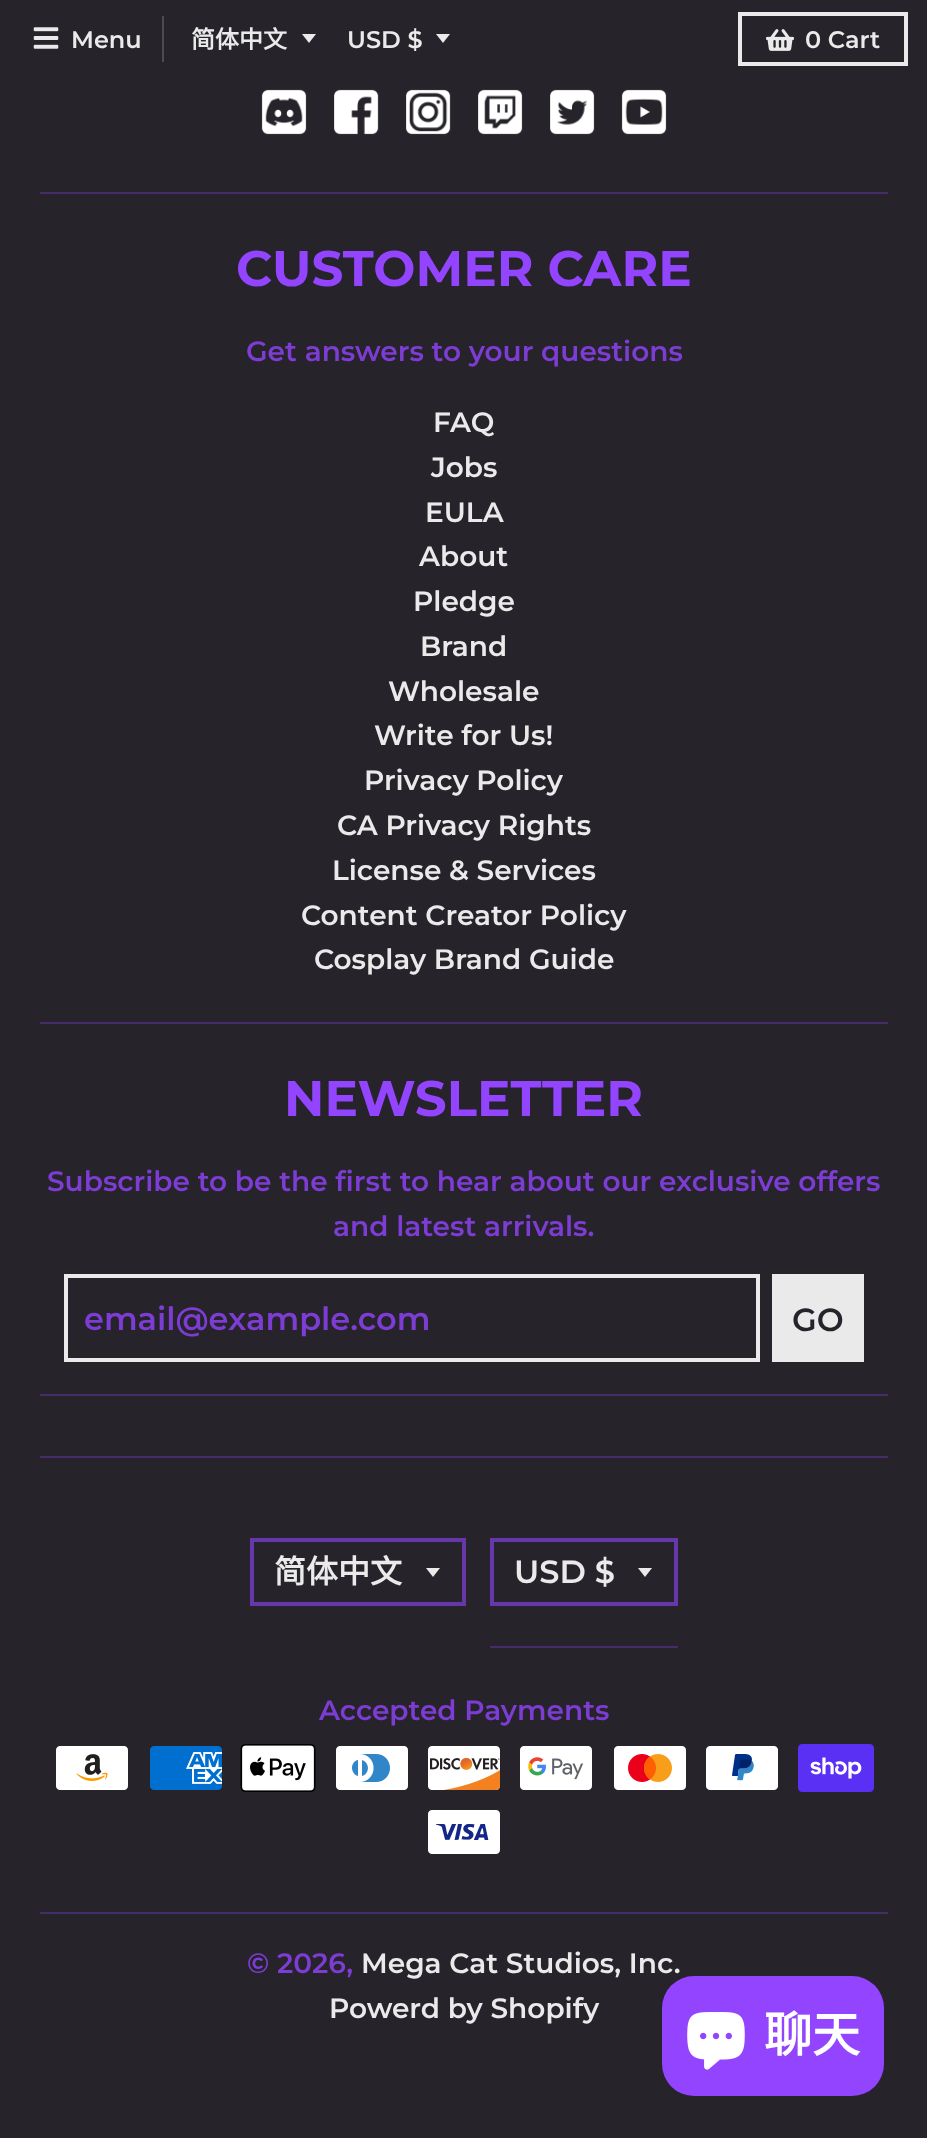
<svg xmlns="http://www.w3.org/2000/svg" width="927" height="2138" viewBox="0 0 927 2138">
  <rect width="100%" height="100%" fill="#26232a"/>
  <image x="33" y="27" width="26" height="22" href="img1.png"/>
  <text x="71" y="48" font-family="Montserrat" font-size="24" font-weight="600" fill="#eaeaea">Menu</text>
  <rect x="162" y="16" width="2" height="46" fill="#4d4a50"/>
  <path d="M302 34L309 43L316 34Z" fill="#eaeaea"/>
  <text x="191" y="48" font-family="Noto Sans CJK SC" font-size="24" font-weight="bold" fill="#eaeaea">简体中文</text>
  <path d="M436 34L443 43L450 34Z" fill="#eaeaea"/>
  <text x="347" y="48" font-family="Montserrat" font-size="24" font-weight="600" fill="#eaeaea">USD $</text>
  <rect x="740" y="14" width="166" height="50" fill="none" stroke="#eaeaea" stroke-width="4"/>
  <image x="766" y="29" width="28" height="22" href="img2.png"/>
  <text x="805" y="48" font-family="Montserrat" font-size="24" font-weight="600" fill="#eaeaea">0 Cart</text>
  <rect x="40" y="192" width="848" height="2" fill="#462c69"/>
  <image x="261" y="89" width="46" height="46" href="img3.png"/>
  <image x="334" y="89" width="45" height="46" href="img4.png"/>
  <image x="406" y="89" width="45" height="46" href="img5.png"/>
  <image x="478" y="89" width="45" height="46" href="img6.png"/>
  <image x="550" y="89" width="45" height="46" href="img7.png"/>
  <image x="621" y="89" width="46" height="46" href="img8.png"/>
  <text x="236" y="286" font-family="Montserrat" font-size="50" font-weight="bold" fill="#9344ff">CUSTOMER CARE</text>
  <text x="246" y="361" font-family="Montserrat" font-size="28" font-weight="600" fill="#7d3dd4">Get answers to your questions</text>
  <rect x="40" y="1022" width="848" height="2" fill="#462c69"/>
  <text x="433" y="432" font-family="Montserrat" font-size="28" font-weight="600" fill="#eaeaea">FAQ</text>
  <text x="431" y="477" font-family="Montserrat" font-size="28" font-weight="600" fill="#eaeaea">Jobs</text>
  <text x="425" y="522" font-family="Montserrat" font-size="28" font-weight="600" fill="#eaeaea">EULA</text>
  <text x="419" y="566" font-family="Montserrat" font-size="28" font-weight="600" fill="#eaeaea">About</text>
  <text x="413" y="611" font-family="Montserrat" font-size="28" font-weight="600" fill="#eaeaea">Pledge</text>
  <text x="420" y="656" font-family="Montserrat" font-size="28" font-weight="600" fill="#eaeaea">Brand</text>
  <text x="388" y="701" font-family="Montserrat" font-size="28" font-weight="600" fill="#eaeaea">Wholesale</text>
  <text x="374" y="745" font-family="Montserrat" font-size="28" font-weight="600" fill="#eaeaea">Write for Us!</text>
  <text x="364" y="790" font-family="Montserrat" font-size="28" font-weight="600" fill="#eaeaea">Privacy Policy</text>
  <text x="337" y="835" font-family="Montserrat" font-size="28" font-weight="600" fill="#eaeaea">CA Privacy Rights</text>
  <text x="332" y="880" font-family="Montserrat" font-size="28" font-weight="600" fill="#eaeaea">License &amp; Services</text>
  <text x="301" y="925" font-family="Montserrat" font-size="28" font-weight="600" fill="#eaeaea">Content Creator Policy</text>
  <text x="314" y="969" font-family="Montserrat" font-size="28" font-weight="600" fill="#eaeaea">Cosplay Brand Guide</text>
  <text x="284" y="1116" font-family="Montserrat" font-size="50" font-weight="bold" fill="#9344ff">NEWSLETTER</text>
  <text x="47" y="1191" font-family="Montserrat" font-size="28" font-weight="600" fill="#7d3dd4">Subscribe to be the first to hear about our exclusive offers</text>
  <text x="333" y="1236" font-family="Montserrat" font-size="28" font-weight="600" fill="#7d3dd4">and latest arrivals.</text>
  <rect x="66" y="1276" width="692" height="84" fill="none" stroke="#eaeaea" stroke-width="4"/>
  <text x="84" y="1330" font-family="Montserrat" font-size="32" font-weight="600" fill="#7d3dd4">email@example.com</text>
  <rect x="772" y="1274" width="92" height="88" fill="#eaeaea"/>
  <text x="792" y="1331" font-family="Montserrat" font-size="32" font-weight="600" fill="#26232a">GO</text>
  <rect x="40" y="1394" width="848" height="2" fill="#462c69"/>
  <rect x="40" y="1456" width="848" height="2" fill="#462c69"/>
  <path d="M426 1568L433 1577L440 1568Z" fill="#eaeaea"/>
  <rect x="252" y="1540" width="212" height="64" fill="none" stroke="#6736a9" stroke-width="4"/>
  <text x="274" y="1583" font-family="Noto Sans CJK SC" font-size="32" font-weight="bold" fill="#eaeaea">简体中文</text>
  <rect x="490" y="1646" width="188" height="2" fill="#462c69"/>
  <path d="M638 1568L645 1577L652 1568Z" fill="#eaeaea"/>
  <rect x="492" y="1540" width="184" height="64" fill="none" stroke="#6736a9" stroke-width="4"/>
  <text x="514" y="1583" font-family="Montserrat" font-size="32" font-weight="600" fill="#eaeaea">USD $</text>
  <text x="319" y="1720" font-family="Montserrat" font-size="28" font-weight="600" fill="#7d3dd4">Accepted Payments</text>
  <rect x="40" y="1912" width="848" height="2" fill="#462c69"/>
  <image x="56" y="1746" width="72" height="44" href="img9.png"/>
  <image x="150" y="1746" width="72" height="44" href="img10.png"/>
  <image x="240" y="1744" width="76" height="48" href="img11.png"/>
  <image x="336" y="1746" width="72" height="44" href="img12.png"/>
  <image x="428" y="1746" width="73" height="44" href="img13.png"/>
  <image x="520" y="1746" width="72" height="44" href="img14.png"/>
  <image x="614" y="1746" width="72" height="44" href="img15.png"/>
  <image x="706" y="1746" width="72" height="44" href="img16.png"/>
  <image x="798" y="1744" width="76" height="48" href="img17.png"/>
  <image x="428" y="1810" width="72" height="44" href="img18.png"/>
  <text x="247" y="1973" font-family="Montserrat" font-size="28" font-weight="600" fill="#7d3dd4">© 2026,</text>
  <text x="361" y="1973" font-family="Montserrat" font-size="28" font-weight="600" fill="#eaeaea">Mega Cat Studios, Inc.</text>
  <text x="329" y="2018" font-family="Montserrat" font-size="28" font-weight="600" fill="#eaeaea">Powerd by Shopify</text>
  <rect x="662" y="1976" width="222" height="120" rx="32" fill="#9344ff"/>
  <image x="687" y="2012" width="58" height="58" href="img19.png"/>
  <text x="764" y="2052" font-family="Noto Sans CJK SC" font-size="48" font-weight="bold" fill="#ffffff">聊天</text>
</svg>
